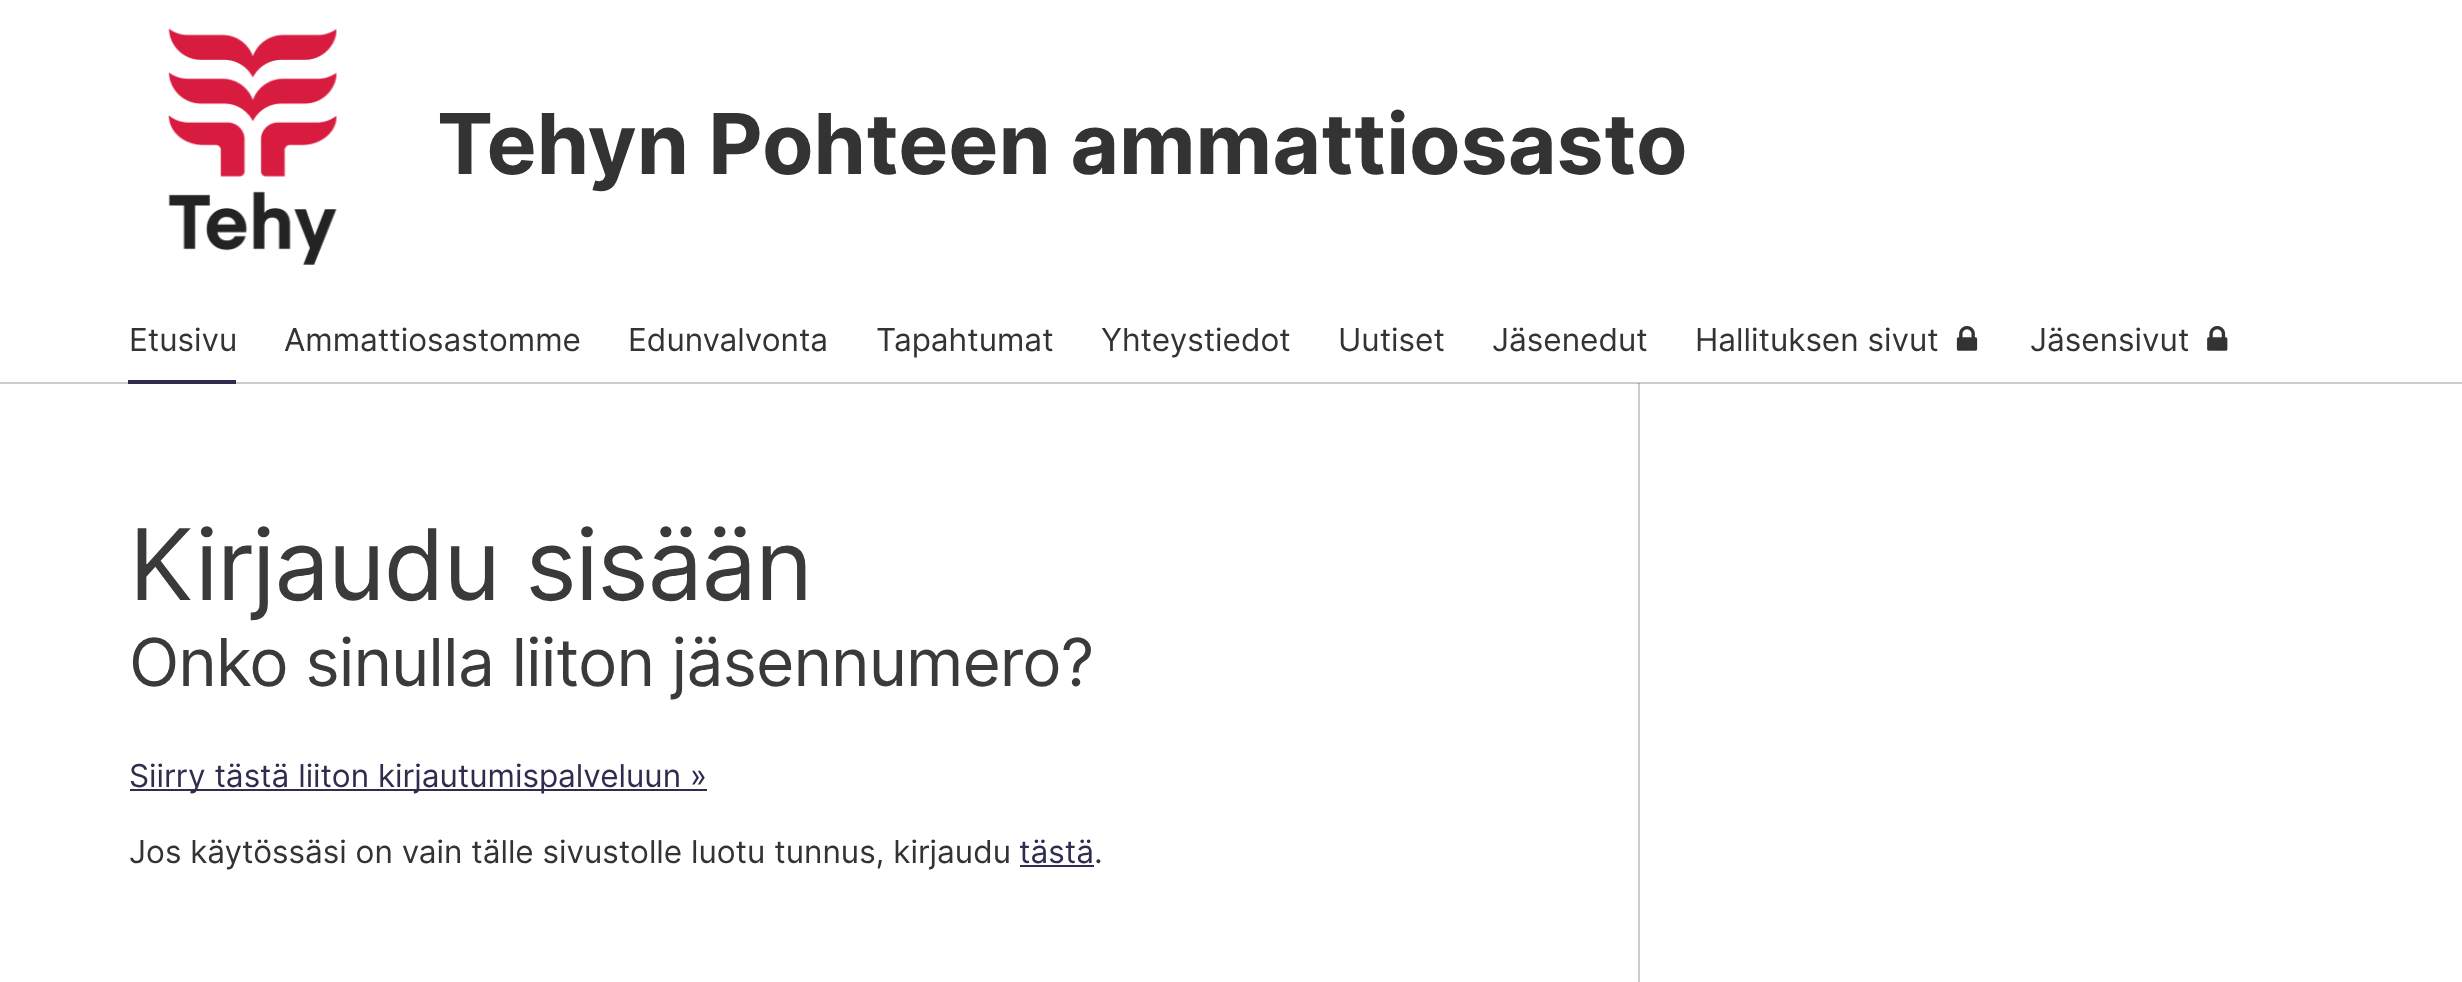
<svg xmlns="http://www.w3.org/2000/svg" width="2462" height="982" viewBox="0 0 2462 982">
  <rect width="100%" height="100%" fill="#ffffff"/>
  <rect x="1638" y="383" width="2" height="599" fill="#cccccc"/>
  <rect x="0" y="382" width="2462" height="2" fill="#cccccc"/>
  <rect x="1638" y="383" width="2" height="1" fill="#a3a3a3"/>
  <image x="168" y="28" width="169" height="237" href="img1.png"/>
  <text x="437" y="174" font-family="Inter" font-size="84" font-weight="bold" fill="#333333">Tehyn Pohteen ammattiosasto</text>
  <text x="129" y="351" font-family="Inter" font-size="31.5" fill="#333333">Etusivu</text>
  <rect x="128" y="380" width="108" height="4" fill="#2f2d4e"/>
  <text x="284" y="351" font-family="Inter" font-size="31.5" fill="#333333">Ammattiosastomme</text>
  <text x="628" y="351" font-family="Inter" font-size="31.5" fill="#333333">Edunvalvonta</text>
  <text x="876" y="351" font-family="Inter" font-size="31.5" fill="#333333">Tapahtumat</text>
  <text x="1101" y="351" font-family="Inter" font-size="31.5" fill="#333333">Yhteystiedot</text>
  <text x="1338" y="351" font-family="Inter" font-size="31.5" fill="#333333">Uutiset</text>
  <text x="1492" y="351" font-family="Inter" font-size="31.5" fill="#333333">Jäsenedut</text>
  <text x="1695" y="351" font-family="Inter" font-size="31.5" fill="#333333">Hallituksen sivut</text>
  <image x="1956" y="326" width="22" height="25" href="img2.png"/>
  <text x="2030" y="351" font-family="Inter" font-size="31.5" fill="#333333">Jäsensivut</text>
  <image x="2207" y="326" width="21" height="25" href="img3.png"/>
  <text x="129" y="600" font-family="Inter" font-size="98.5" letter-spacing="-1.5" fill="#3a3a3a">Kirjaudu sisään</text>
  <text x="129" y="686" font-family="Inter" font-size="66" letter-spacing="-1" fill="#3a3a3a">Onko sinulla liiton jäsennumero?</text>
  <rect x="130" y="789" width="577" height="2" fill="#2f2d4e"/>
  <text x="129" y="787" font-family="Inter" font-size="31.5" fill="#2f2d4e">Siirry tästä liiton kirjautumispalveluun »</text>
  <text x="129" y="863" font-family="Inter" font-size="31.5" fill="#333333">Jos käytössäsi on vain tälle sivustolle luotu tunnus, kirjaudu</text>
  <text x="1019" y="863" font-family="Inter" font-size="31.5" fill="#2f2d4e">tästä</text>
  <rect x="1020" y="865" width="74" height="2" fill="#2f2d4e"/>
  <text x="1094" y="863" font-family="Inter" font-size="31.5" fill="#333333">.</text>
</svg>
